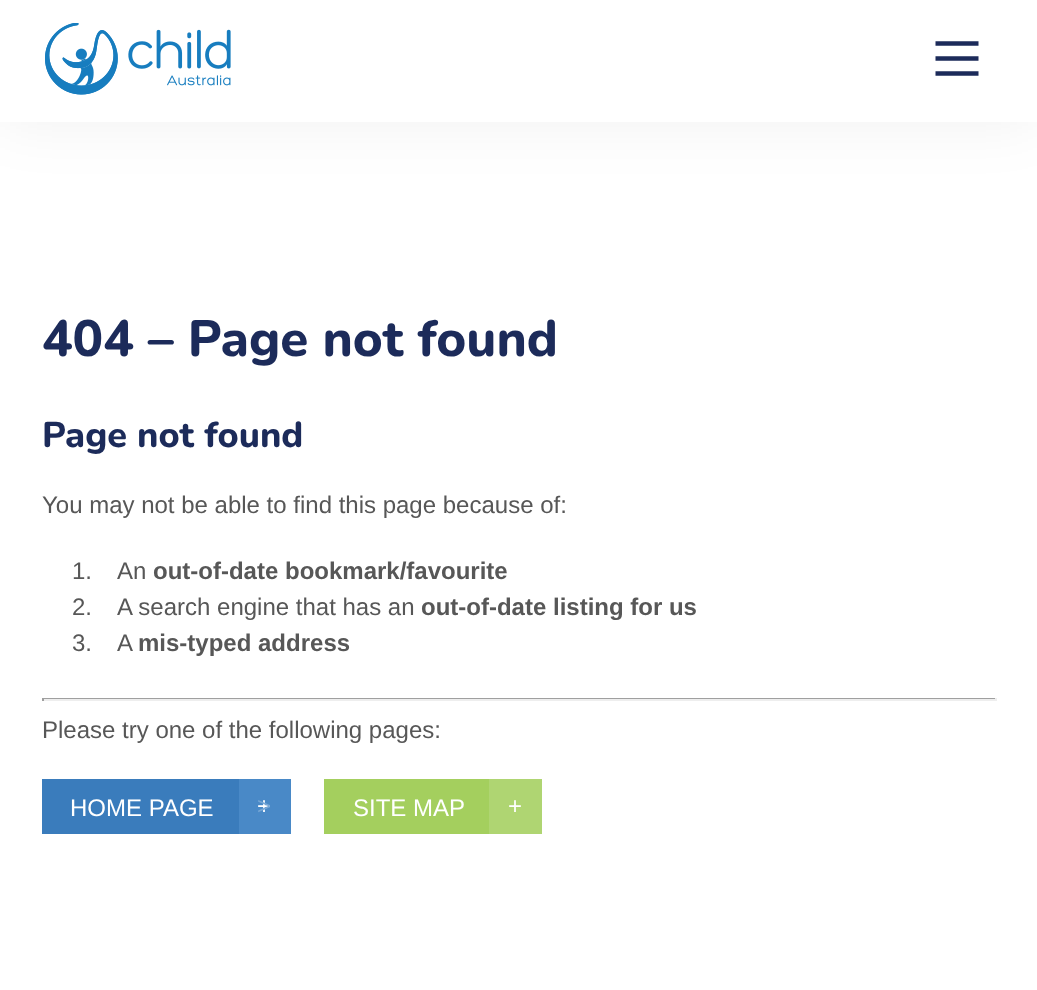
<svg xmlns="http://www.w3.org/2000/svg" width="1037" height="990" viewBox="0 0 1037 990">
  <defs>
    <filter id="blur1" x="-50%" y="-200%" width="200%" height="500%"><feGaussianBlur stdDeviation="30"/></filter>
  </defs>
  <rect width="100%" height="100%" fill="#ffffff"/>
  <rect x="0" y="0" width="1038" height="122" fill="#000000" fill-opacity="0.06" filter="url(#blur1)"/>
  <rect x="0" y="0" width="1037" height="122" fill="#ffffff"/>
  <image x="45" y="23" width="186" height="72" href="img1.png"/>
  <path d="M935.5 43.5H978.5M935.5 58.5H978.5M935.5 73.5H978.5" fill="none" stroke="#1c2b5a" stroke-width="4.3"/>
  <text x="42" y="356" font-family="Nunito" font-size="51" font-weight="800" fill="#1c2b5a">404 – Page not found</text>
  <text x="42" y="447" font-family="Nunito" font-size="36" font-weight="800" fill="#1c2b5a">Page not found</text>
  <text x="42" y="513" font-family="Liberation Sans" font-size="24" fill="#575757">You may not be able to find this page because of:</text>
  <text x="72" y="579" font-family="Liberation Sans" font-size="24" fill="#575757">1.</text>
  <text x="117" y="579" font-family="Liberation Sans" font-size="24" fill="#575757">An</text>
  <text x="153" y="579" font-family="Liberation Sans" font-size="24" font-weight="bold" fill="#575757">out-of-date bookmark/favourite</text>
  <text x="72" y="615" font-family="Liberation Sans" font-size="24" fill="#575757">2.</text>
  <text x="117" y="615" font-family="Liberation Sans" font-size="24" fill="#575757">A search engine that has an</text>
  <text x="421" y="615" font-family="Liberation Sans" font-size="24" font-weight="bold" fill="#575757">out-of-date listing for us</text>
  <text x="72" y="651" font-family="Liberation Sans" font-size="24" fill="#575757">3.</text>
  <text x="117" y="651" font-family="Liberation Sans" font-size="24" fill="#575757">A</text>
  <text x="138" y="651" font-family="Liberation Sans" font-size="24" font-weight="bold" fill="#575757">mis-typed address</text>
  <rect x="42" y="698" width="954" height="1" fill="#9f9f9f"/>
  <rect x="995" y="698" width="2" height="3" fill="#eeeeee"/>
  <rect x="42" y="699" width="954" height="2" fill="#eeeeee"/>
  <rect x="42" y="698" width="2" height="3" fill="#9f9f9f"/>
  <text x="42" y="738" font-family="Liberation Sans" font-size="24" fill="#575757">Please try one of the following pages:</text>
  <rect x="42" y="779" width="197" height="55" fill="#3a7cbc"/>
  <text x="70" y="816" font-family="Liberation Sans" font-size="24" fill="#ffffff">HOME PAGE</text>
  <rect x="239" y="779" width="52" height="55" fill="#4989c7"/>
  <text x="257" y="814" font-family="Liberation Sans" font-size="24" fill="#ffffff">+</text>
  <text x="257" y="814" font-family="Liberation Sans" font-size="24" fill="#76a6d5">&gt;</text>
  <rect x="324" y="779" width="165" height="55" fill="#a4cf5e"/>
  <text x="353" y="816" font-family="Liberation Sans" font-size="24" fill="#ffffff">SITE MAP</text>
  <rect x="489" y="779" width="53" height="55" fill="#afd572"/>
  <text x="508" y="814" font-family="Liberation Sans" font-size="24" fill="#ffffff">+</text>
</svg>
